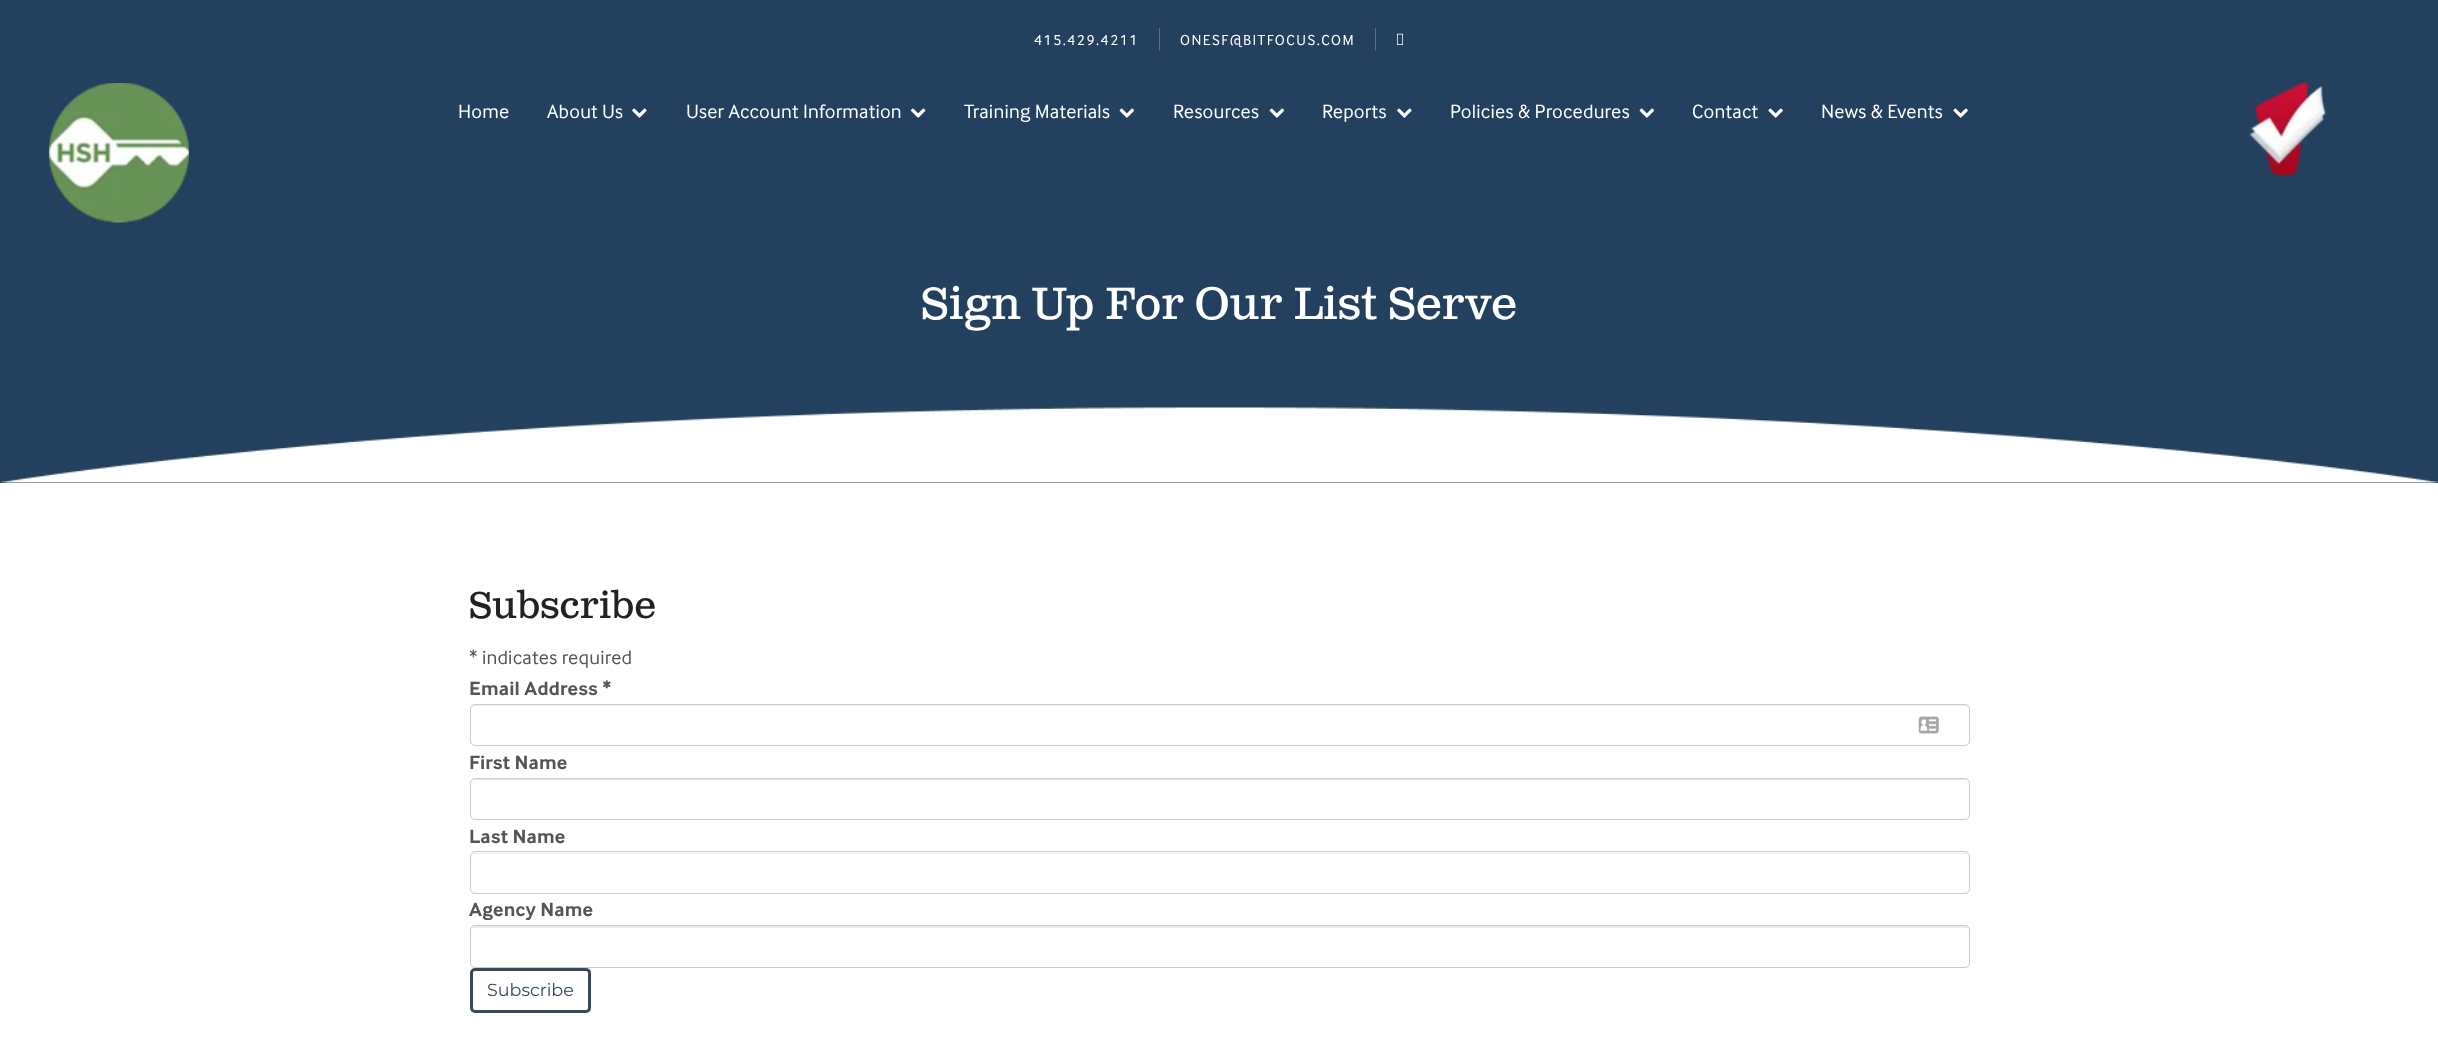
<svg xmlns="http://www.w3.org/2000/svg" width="2438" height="1055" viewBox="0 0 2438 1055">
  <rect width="100%" height="100%" fill="#ffffff"/>
  <rect x="0" y="0" width="2438" height="483" fill="#23405e"/>
  <rect x="1159" y="28" width="1" height="23" fill="#5a7086"/>
  <text x="1034" y="45" font-family="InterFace" font-size="15" letter-spacing="1.5" fill="#ffffff">415.429.4211</text>
  <rect x="1375" y="28" width="1" height="23" fill="#5a7086"/>
  <text x="1180" y="45" font-family="InterFace" font-size="15" letter-spacing="1.5" fill="#ffffff">ONESF@BITFOCUS.COM</text>
  <image x="1397" y="33" width="6" height="12" href="img1.png"/>
  <image x="49" y="83" width="140" height="140" href="img2.png"/>
  <text x="458" y="118" font-family="InterFace" font-size="20" letter-spacing="0.2" fill="#ffffff">Home</text>
  <text x="547" y="118" font-family="InterFace" font-size="20" letter-spacing="0.2" fill="#ffffff">About Us</text>
  <image x="632" y="108" width="15" height="10" href="img3.png"/>
  <text x="686" y="118" font-family="InterFace" font-size="20" letter-spacing="0.2" fill="#ffffff">User Account Information</text>
  <image x="910" y="108" width="16" height="10" href="img4.png"/>
  <text x="964" y="118" font-family="InterFace" font-size="20" letter-spacing="0.2" fill="#ffffff">Training Materials</text>
  <image x="1119" y="108" width="16" height="10" href="img5.png"/>
  <text x="1173" y="118" font-family="InterFace" font-size="20" letter-spacing="0.2" fill="#ffffff">Resources</text>
  <image x="1269" y="108" width="16" height="10" href="img5.png"/>
  <text x="1322" y="118" font-family="InterFace" font-size="20" letter-spacing="0.2" fill="#ffffff">Reports</text>
  <image x="1397" y="108" width="15" height="10" href="img3.png"/>
  <text x="1450" y="118" font-family="InterFace" font-size="20" letter-spacing="0.2" fill="#ffffff">Policies &amp; Procedures</text>
  <image x="1639" y="108" width="16" height="10" href="img5.png"/>
  <text x="1692" y="118" font-family="InterFace" font-size="20" letter-spacing="0.2" fill="#ffffff">Contact</text>
  <image x="1768" y="108" width="15" height="10" href="img6.png"/>
  <text x="1821" y="118" font-family="InterFace" font-size="20" letter-spacing="0.2" fill="#ffffff">News &amp; Events</text>
  <image x="1953" y="108" width="15" height="10" href="img6.png"/>
  <image x="2249" y="83" width="77" height="93" href="img7.png"/>
  <text x="921" y="319" font-family="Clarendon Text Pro" font-size="45" letter-spacing="0.2" fill="#ffffff">Sign Up For Our List Serve</text>
  <image x="0" y="407" width="2438" height="76" href="img8.png"/>
  <text x="469" y="618" font-family="Clarendon Text Pro" font-size="37.5" letter-spacing="0.2" fill="#222222">Subscribe</text>
  <text x="469" y="664" font-family="InterFace" font-size="20" letter-spacing="0.2" fill="#555555">* indicates required</text>
  <text x="469" y="695" font-family="InterFace" font-size="20" font-weight="bold" letter-spacing="0.2" fill="#555555">Email Address *</text>
  <image x="1918" y="716" width="21" height="18" href="img9.png"/>
  <path d="M475 706H1965C1967 706 1969 708 1969 710V709C1969 707 1967 705 1965 705H475C473 705 471 707 471 709V710C471 708 473 706 475 706Z" fill="#ececec"/>
  <rect x="470.5" y="704.5" width="1499" height="41" rx="4.5" fill="none" stroke="#cccccc"/>
  <text x="469" y="769" font-family="InterFace" font-size="20" font-weight="bold" letter-spacing="0.2" fill="#555555">First Name</text>
  <path d="M475 780H1965C1967 780 1969 782 1969 784V783C1969 781 1967 779 1965 779H475C473 779 471 781 471 783V784C471 782 473 780 475 780Z" fill="#ececec"/>
  <rect x="470.5" y="778.5" width="1499" height="41" rx="4.5" fill="none" stroke="#cccccc"/>
  <text x="469" y="843" font-family="InterFace" font-size="20" font-weight="bold" letter-spacing="0.2" fill="#555555">Last Name</text>
  <path d="M475 854H1965C1967 854 1969 855 1969 858V857C1969 855 1967 853 1965 853H475C473 853 471 855 471 857V858C471 855 473 854 475 854Z" fill="#ececec"/>
  <rect x="470.5" y="851.5" width="1499" height="42" rx="4.5" fill="none" stroke="#cccccc"/>
  <text x="469" y="916" font-family="InterFace" font-size="20" font-weight="bold" letter-spacing="0.2" fill="#555555">Agency Name</text>
  <path d="M475 928H1965C1967 928 1969 929 1969 931V930C1969 928 1967 926 1965 926H475C473 926 471 928 471 930V931C471 929 473 928 475 928Z" fill="#ececec"/>
  <rect x="470.5" y="925.5" width="1499" height="42" rx="4.5" fill="none" stroke="#cccccc"/>
  <rect x="471.5" y="969.5" width="118" height="42" rx="3.5" fill="none" stroke="#34495e" stroke-width="3"/>
  <text x="487" y="996" font-family="Montserrat" font-size="17.5" fill="#34495e">Subscribe</text>
</svg>
